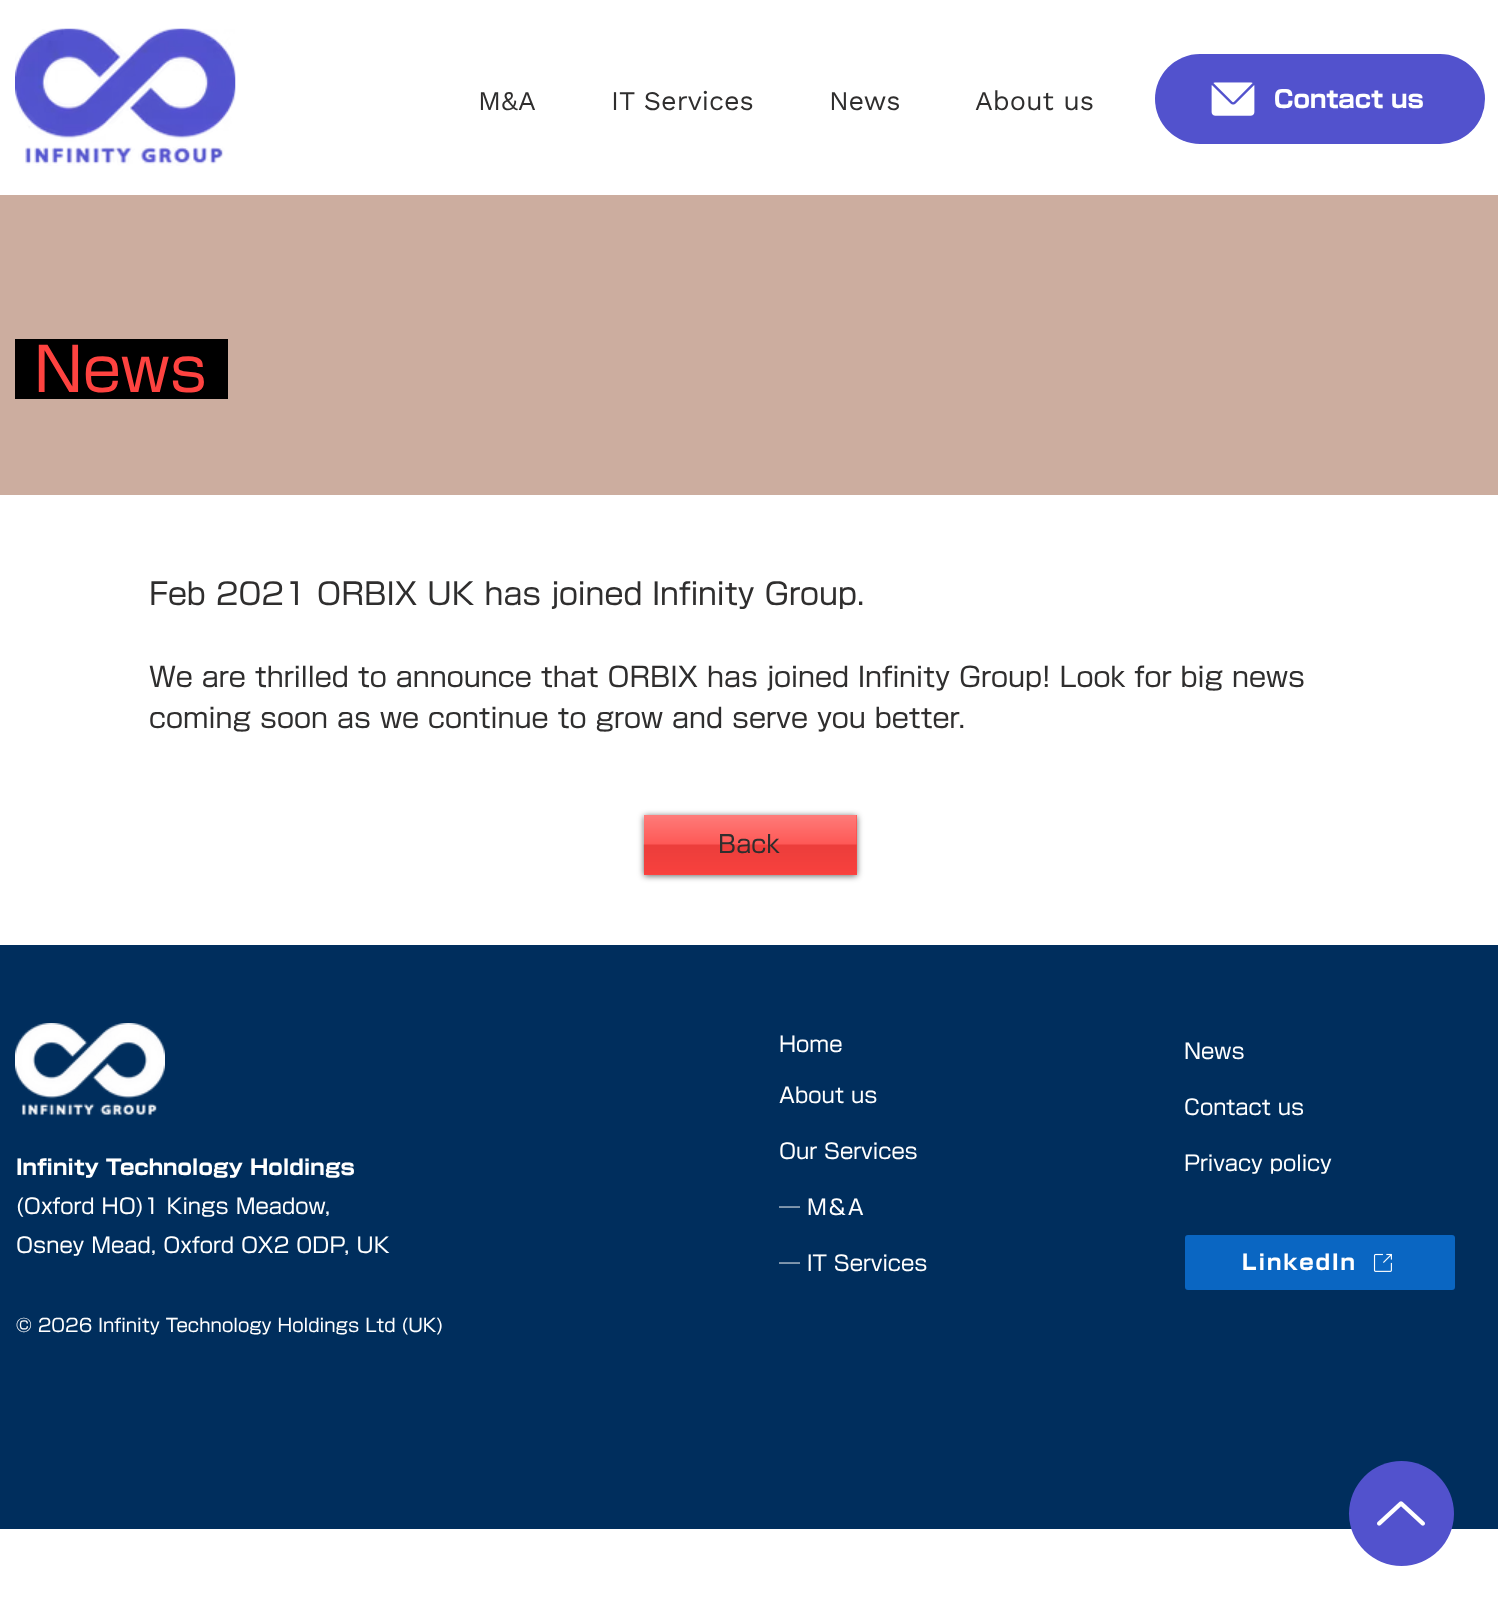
<svg xmlns="http://www.w3.org/2000/svg" width="1498" height="1611" viewBox="0 0 1498 1611">
  <defs>
    <filter id="blur1" x="-50%" y="-200%" width="200%" height="500%"><feGaussianBlur stdDeviation="3"/></filter>
  </defs>
  <rect width="100%" height="100%" fill="#ffffff"/>
  <image x="15" y="28" width="221" height="138" href="img1.png"/>
  <text x="478" y="110" font-family="Work Sans" font-size="27" fill="#2f2e2e">M&amp;A</text>
  <text x="611" y="110" font-family="Work Sans" font-size="27" fill="#2f2e2e">IT Services</text>
  <text x="829" y="110" font-family="Work Sans" font-size="27" fill="#2f2e2e">News</text>
  <text x="975" y="110" font-family="Work Sans" font-size="27" fill="#2f2e2e">About us</text>
  <rect x="1155" y="54" width="330" height="90" rx="45" fill="#5252cd"/>
  <image x="1211" y="82" width="44" height="34" href="img2.png"/>
  <text x="1274" y="108" font-family="'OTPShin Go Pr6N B'" font-size="24" font-weight="bold" fill="#ffffff">Contact us</text>
  <rect x="0" y="195" width="1498" height="300" fill="#ccad9f"/>
  <rect x="15" y="339" width="213" height="60" fill="#000000"/>
  <text x="34" y="392" font-family="'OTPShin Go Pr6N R'" font-size="60" fill="#fe4340">News</text>
  <text x="149" y="605" font-family="'OTPShin Go Pr6N R'" font-size="30" fill="#2f2e2e">Feb 2021 ORBIX UK has joined Infinity Group.</text>
  <text x="149" y="687" font-family="'OTPShin Go Pr6N R'" font-size="27" fill="#2f2e2e">We are thrilled to announce that ORBIX has joined Infinity Group! Look for big news</text>
  <text x="149" y="728" font-family="'OTPShin Go Pr6N R'" font-size="27" fill="#2f2e2e">coming soon as we continue to grow and serve you better.</text>
  <rect x="644" y="816" width="213" height="60" fill="#000000" fill-opacity="0.6" filter="url(#blur1)"/>
  <rect x="644" y="815" width="213" height="60" fill="#fe4340"/>
  <image x="643" y="815" width="214" height="59" href="img3.png"/>
  <text x="718" y="853" font-family="'OTPShin Go Pr6N R'" font-size="24" fill="#2f2e2e">Back</text>
  <rect x="0" y="945" width="1498" height="584" fill="#002e5d"/>
  <image x="15" y="1023" width="150" height="93" href="img4.png"/>
  <text x="16" y="1175" font-family="'OTPShin Go Pr6N B'" font-size="21" font-weight="bold" fill="#ffffff">Infinity Technology Holdings</text>
  <text x="16" y="1214" font-family="'OTPShin Go Pr6N R'" font-size="21" fill="#ffffff">(Oxford HO)1 Kings Meadow,</text>
  <text x="16" y="1253" font-family="'OTPShin Go Pr6N R'" font-size="21" fill="#ffffff">Osney Mead, Oxford OX2 0DP, UK</text>
  <text x="16" y="1332" font-family="'OTPShin Go Pr6N R'" font-size="18" fill="#ffffff">© 2026 Infinity Technology Holdings Ltd (UK)</text>
  <text x="779" y="1052" font-family="'OTPShin Go Pr6N R'" font-size="21" fill="#ffffff">Home</text>
  <text x="779" y="1103" font-family="'OTPShin Go Pr6N R'" font-size="21" fill="#ffffff">About us</text>
  <text x="779" y="1159" font-family="'OTPShin Go Pr6N R'" font-size="21" fill="#ffffff">Our Services</text>
  <text x="779" y="1215" font-family="'OTPShin Go Pr6N R'" font-size="21" fill="#ffffff">─ M＆A</text>
  <text x="779" y="1271" font-family="'OTPShin Go Pr6N R'" font-size="21" fill="#ffffff">─ IT Services</text>
  <text x="1184" y="1059" font-family="'OTPShin Go Pr6N R'" font-size="21" fill="#ffffff">News</text>
  <text x="1184" y="1115" font-family="'OTPShin Go Pr6N R'" font-size="21" fill="#ffffff">Contact us</text>
  <text x="1184" y="1171" font-family="'OTPShin Go Pr6N R'" font-size="21" fill="#ffffff">Privacy policy</text>
  <rect x="1185" y="1235" width="270" height="55" rx="3" fill="#0a66c2"/>
  <text x="1242" y="1270" font-family="'OTPShin Go Pr6N B'" font-size="21" font-weight="bold" letter-spacing="2" fill="#ffffff">LinkedIn</text>
  <image x="1373" y="1253" width="19" height="19" href="img5.png"/>
  <circle cx="1401.5" cy="1513.5" r="52.5" fill="#5252cd"/>
  <image x="1377" y="1501" width="48" height="25" href="img6.png"/>
</svg>
